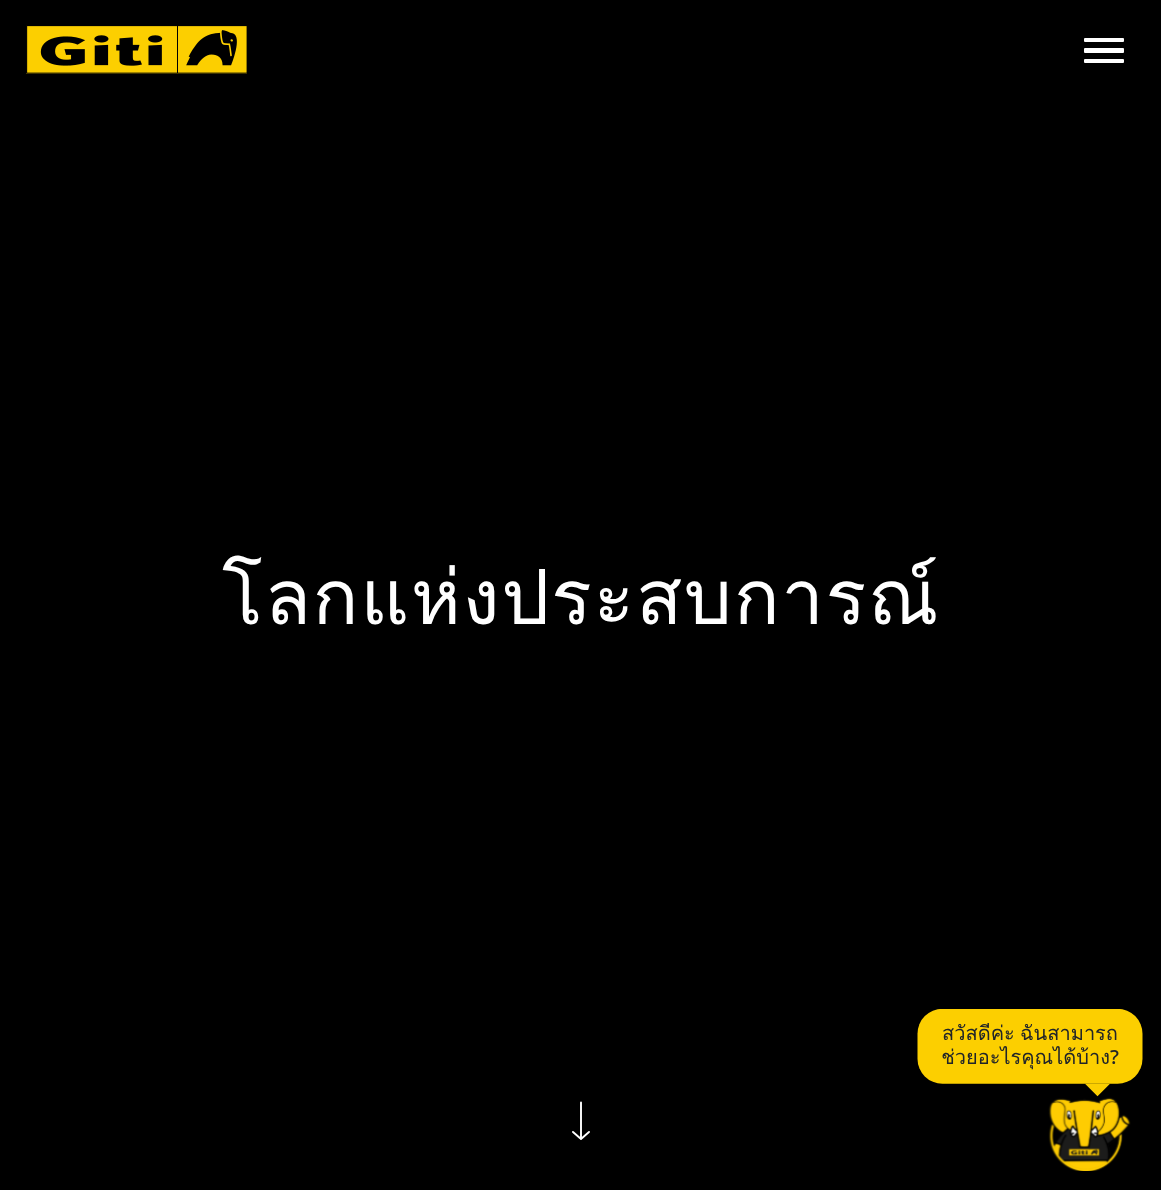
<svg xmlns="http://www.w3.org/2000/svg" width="1161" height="1190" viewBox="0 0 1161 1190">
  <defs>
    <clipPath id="clip1"><path d="M590 1100.5V1139.5H571.5V1100.5Z"/></clipPath>
  </defs>
  <rect width="100%" height="100%" fill="#000000"/>
  <image x="26" y="25" width="221" height="49" href="img1.png"/>
  <rect x="1084" y="38" width="40" height="4" rx="1" fill="#ffffff"/>
  <rect x="1084" y="48" width="40" height="5" rx="1" fill="#ffffff"/>
  <rect x="1084" y="59" width="40" height="4" rx="1" fill="#ffffff"/>
  <text x="222" y="624" font-family="Loma" font-size="76" letter-spacing="1.6" fill="#ffffff">โลกแห่งประสบการณ์</text>
  <path d="M581 1102.5V1139" fill="none" stroke="#ffffff" stroke-width="1.9" stroke-linecap="round" stroke-linejoin="round"/>
  <g clip-path="url(#clip1)">
    <path d="M589 1132L581 1139L573 1132" fill="none" stroke="#ffffff" stroke-width="1.9" stroke-linecap="round" stroke-linejoin="round"/>
  </g>
  <image x="917" y="1009" width="226" height="162" href="img2.png"/>
</svg>
